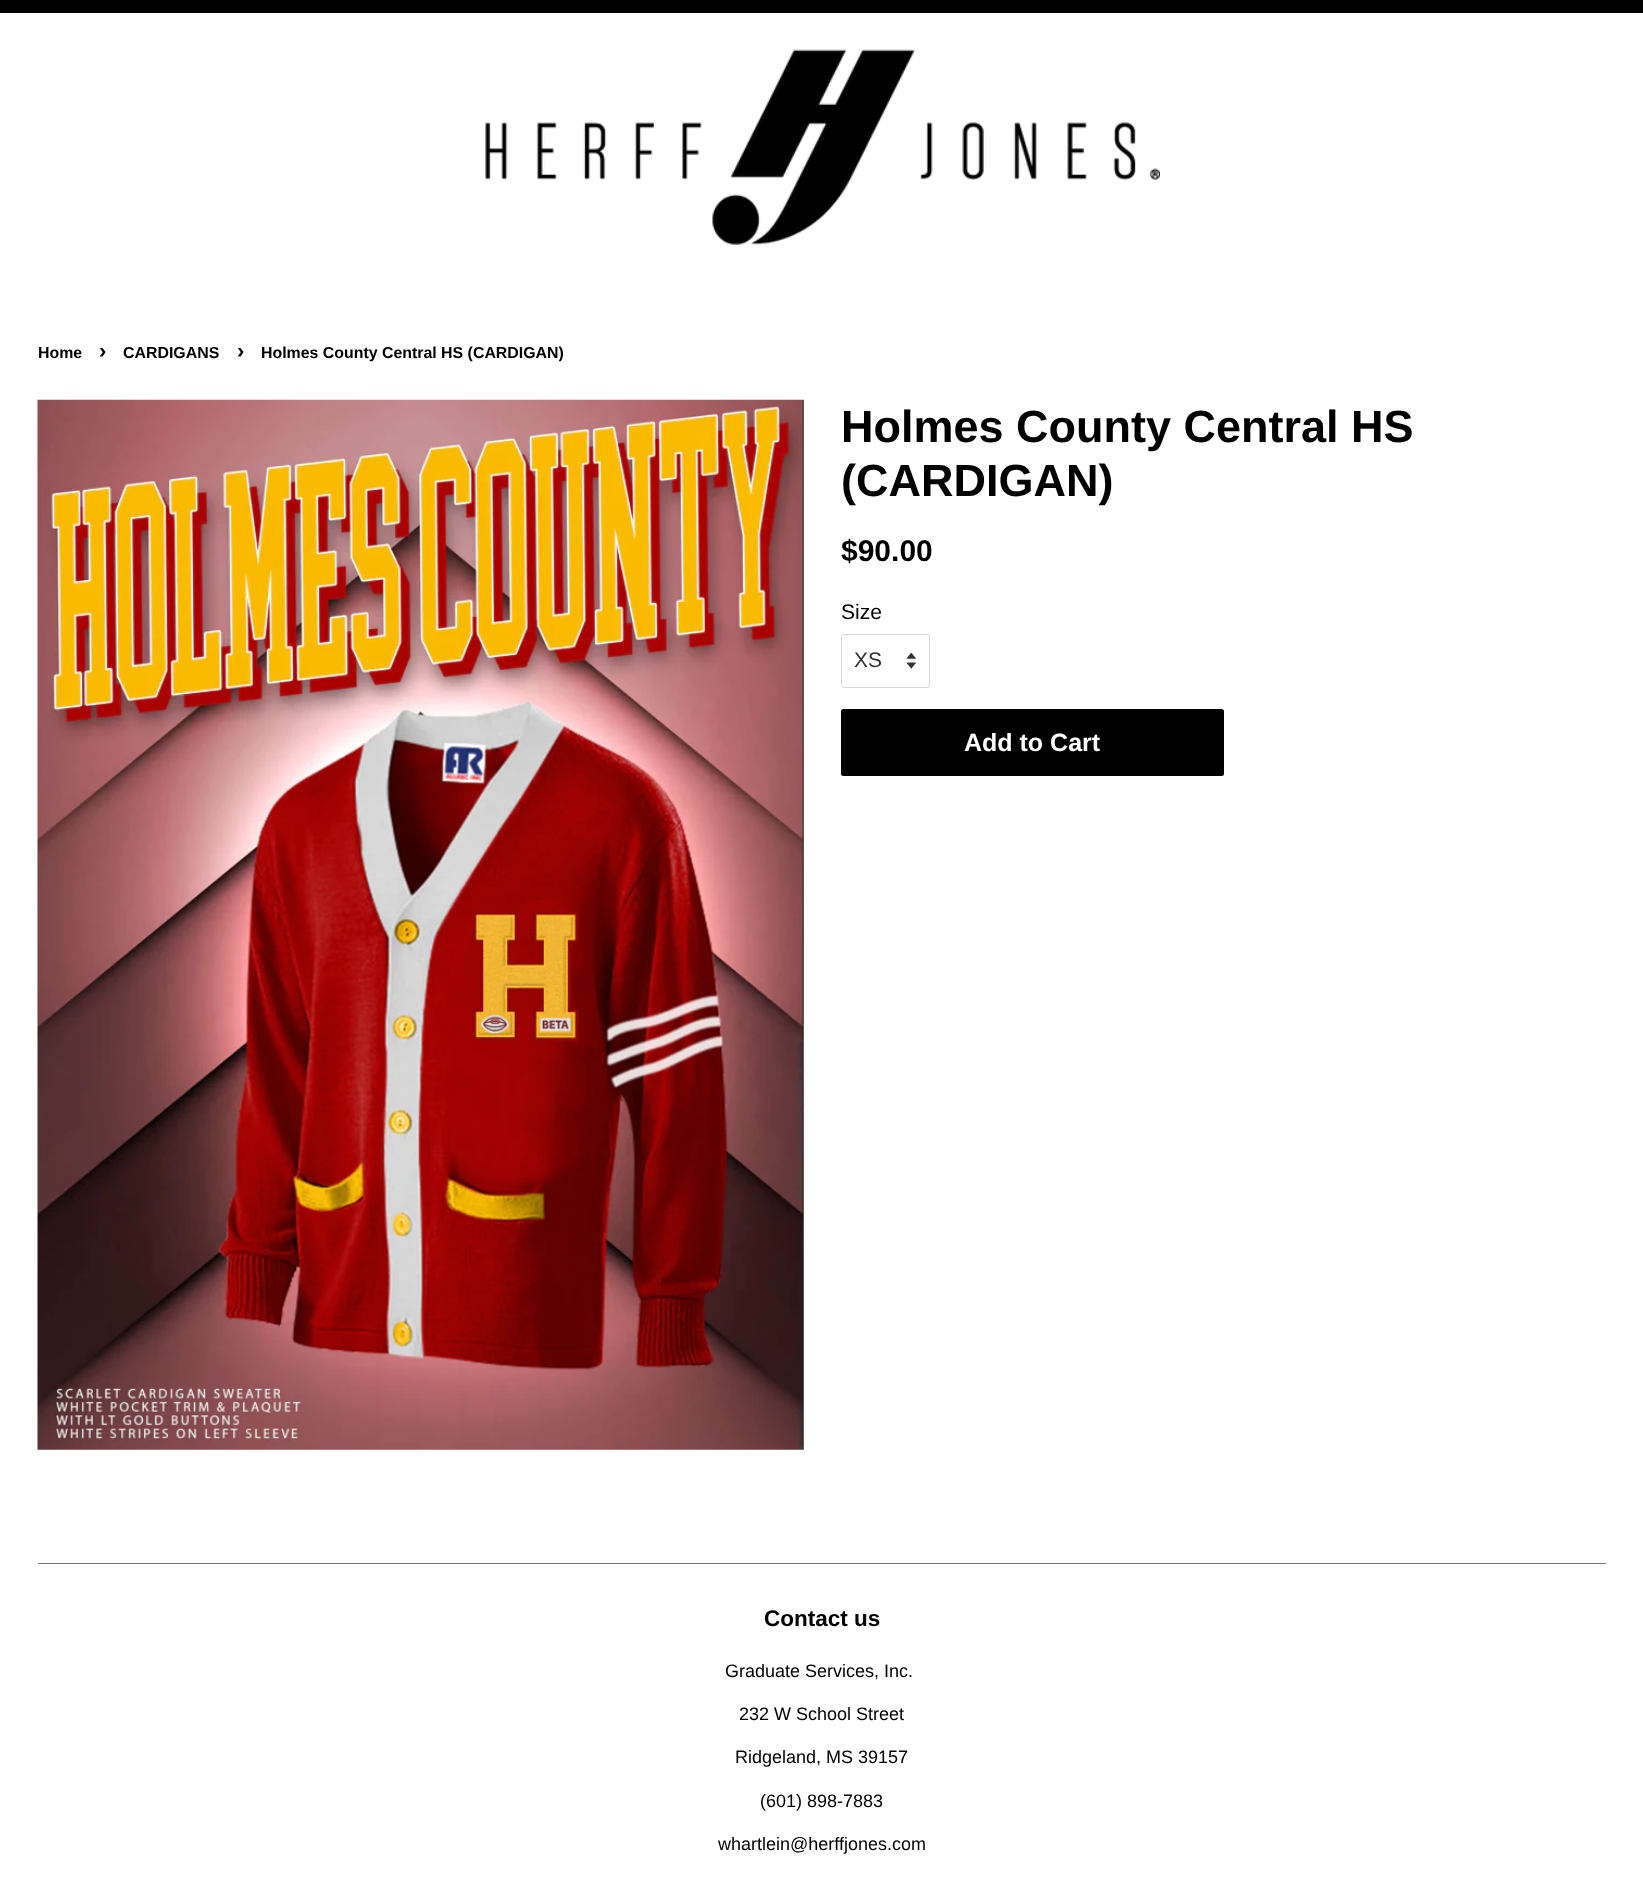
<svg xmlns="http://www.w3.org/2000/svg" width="1643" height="1904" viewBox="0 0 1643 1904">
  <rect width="100%" height="100%" fill="#ffffff"/>
  <rect x="0" y="0" width="1643" height="13" fill="#000000"/>
  <image x="485" y="49" width="675" height="196" href="img1.png"/>
  <text x="38" y="358" font-family="Arimo" font-size="15.9" font-weight="bold" fill="#000000">Home</text>
  <text x="99" y="358" font-family="Arimo" font-size="22" font-weight="bold" fill="#000000">›</text>
  <text x="123" y="358" font-family="Arimo" font-size="15.9" font-weight="bold" fill="#000000">CARDIGANS</text>
  <text x="237" y="358" font-family="Arimo" font-size="22" font-weight="bold" fill="#000000">›</text>
  <text x="261" y="358" font-family="Arimo" font-size="15.9" font-weight="bold" fill="#000000">Holmes County Central HS (CARDIGAN)</text>
  <image x="37" y="399" width="767" height="1051" href="img2.png"/>
  <text x="841" y="442" font-family="Arimo" font-size="45" font-weight="bold" fill="#000000">Holmes County Central HS</text>
  <text x="841" y="496" font-family="Arimo" font-size="45" font-weight="bold" fill="#000000">(CARDIGAN)</text>
  <text x="841" y="561" font-family="Arimo" font-size="30" font-weight="bold" fill="#000000">$90.00</text>
  <text x="841" y="619" font-family="Arimo" font-size="21" fill="#000000">Size</text>
  <image x="906" y="653" width="10" height="16" href="img3.png"/>
  <rect x="841.5" y="634.5" width="88" height="53" rx="2" fill="none" stroke="#d9d9d9"/>
  <text x="854" y="667" font-family="Arimo" font-size="21" fill="#333333">XS</text>
  <rect x="841" y="709" width="383" height="67" rx="2.5" fill="#000000"/>
  <text x="964" y="751" font-family="Arimo" font-size="25" font-weight="bold" fill="#ffffff">Add to Cart</text>
  <rect x="38" y="1563" width="1568" height="1" fill="#767676"/>
  <text x="764" y="1626" font-family="Arimo" font-size="22.5" font-weight="bold" fill="#000000">Contact us</text>
  <text x="725" y="1677" font-family="Arimo" font-size="18" fill="#000000">Graduate Services, Inc.</text>
  <text x="739" y="1720" font-family="Arimo" font-size="18" fill="#000000">232 W School Street</text>
  <text x="735" y="1763" font-family="Arimo" font-size="18" fill="#000000">Ridgeland, MS 39157</text>
  <text x="760" y="1807" font-family="Arimo" font-size="18" fill="#000000">(601) 898-7883</text>
  <text x="718" y="1850" font-family="Arimo" font-size="18" fill="#000000">whartlein@herffjones.com</text>
</svg>
